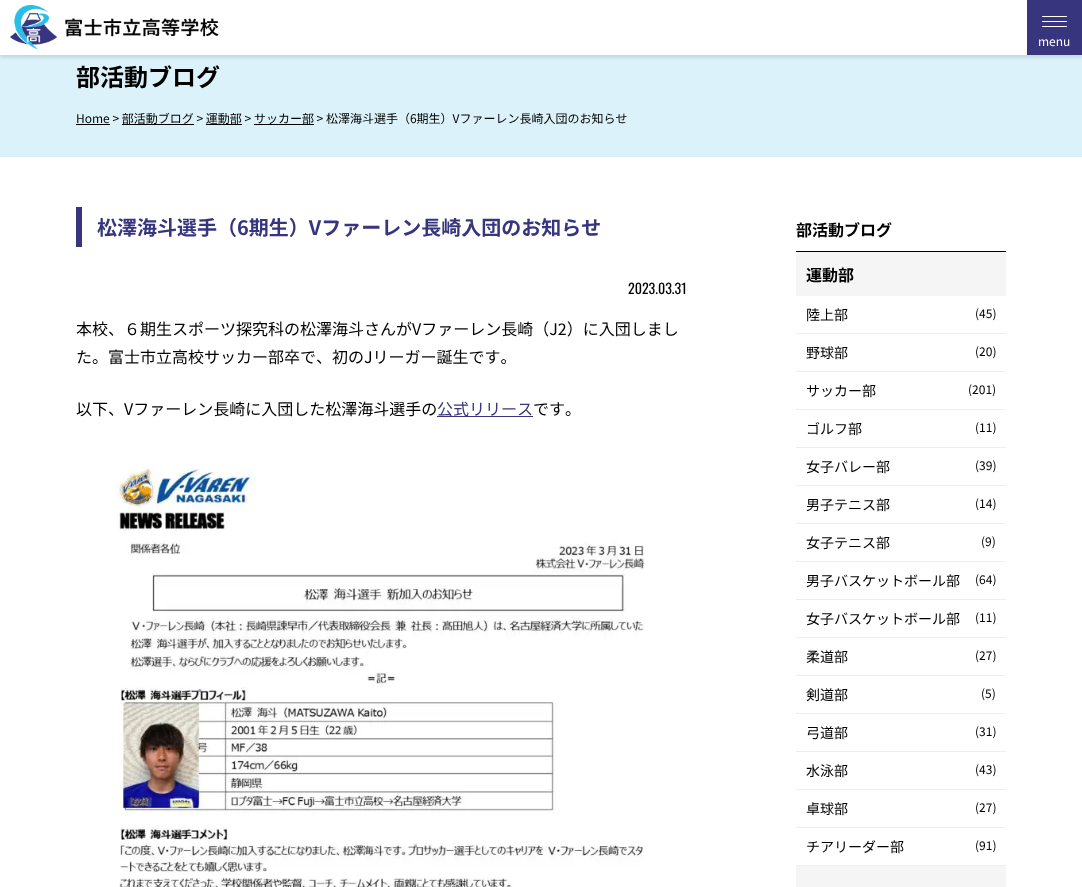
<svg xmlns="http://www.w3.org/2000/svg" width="1082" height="887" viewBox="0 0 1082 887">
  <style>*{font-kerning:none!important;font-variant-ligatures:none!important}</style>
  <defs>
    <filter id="blur1" x="-50%" y="-200%" width="200%" height="500%"><feGaussianBlur stdDeviation="1.5"/></filter>
  </defs>
  <rect width="100%" height="100%" fill="#ffffff"/>
  <rect x="0" y="55" width="1082" height="102" fill="#dbf2fa"/>
  <rect x="0" y="3" width="1082" height="55" fill="#000000" fill-opacity="0.1" filter="url(#blur1)"/>
  <rect x="1027" y="0" width="55" height="55" fill="#37357e"/>
  <rect x="1042" y="21" width="25" height="1" rx="0.5" fill="#ffffff"/>
  <rect x="1042" y="16" width="25" height="1" rx="0.5" fill="#ffffff"/>
  <rect x="1042" y="26" width="25" height="1" rx="0.5" fill="#ffffff"/>
  <text x="1038" y="46" font-family="Noto Sans JP" font-size="12" fill="#ffffff">menu</text>
  <rect x="0" y="1" width="1027" height="54" fill="#ffffff"/>
  <image x="10" y="5" width="209" height="45" href="img1.png"/>
  <text x="76" y="86" font-family="Noto Sans JP" font-size="24" font-weight="bold" fill="#000000">部活動ブログ</text>
  <rect x="76" y="124" width="34" height="1" fill="#000000"/>
  <text x="76" y="123" font-family="Noto Sans JP" font-size="12" fill="#000000">Home &gt; 部活動ブログ &gt; 運動部 &gt; サッカー部 &gt; 松澤海斗選手（6期生）Vファーレン長崎入団のお知らせ</text>
  <rect x="122" y="124" width="72" height="1" fill="#000000"/>
  <rect x="206" y="124" width="36" height="1" fill="#000000"/>
  <rect x="254" y="124" width="60" height="1" fill="#000000"/>
  <rect x="76" y="207" width="6" height="40" fill="#37357e"/>
  <text x="97" y="235" font-family="Noto Sans JP" font-size="20" font-weight="bold" fill="#37357e">松澤海斗選手（6期生）Vファーレン長崎入団のお知らせ</text>
  <text x="628" y="294" font-family="Oswald" font-size="14" fill="#000000">2023.03.31</text>
  <text x="76" y="335" font-family="Noto Sans JP" font-size="16" fill="#000000">本校、６期生スポーツ探究科の松澤海斗さんがVファーレン長崎（J2）に入団しまし</text>
  <text x="76" y="363" font-family="Noto Sans JP" font-size="16" fill="#000000">た。富士市立高校サッカー部卒で、初のJリーガー誕生です。</text>
  <text x="76" y="415" font-family="Noto Sans JP" font-size="16" fill="#000000">以下、Vファーレン長崎に入団した松澤海斗選手の</text>
  <rect x="437" y="416" width="96" height="1" fill="#37357e"/>
  <text x="437" y="415" font-family="Noto Sans JP" font-size="16" fill="#37357e">公式リリース</text>
  <text x="533" y="415" font-family="Noto Sans JP" font-size="16" fill="#000000">です。</text>
  <image x="115" y="468" width="530" height="419" href="img2.png"/>
  <rect x="796" y="251" width="210" height="1" fill="#000000"/>
  <text x="796" y="236" font-family="Noto Sans JP" font-size="16" font-weight="bold" fill="#000000">部活動ブログ</text>
  <rect x="796" y="252" width="210" height="44" fill="#f5f5f5"/>
  <text x="806" y="281" font-family="Noto Sans JP" font-size="16" font-weight="bold" fill="#000000">運動部</text>
  <rect x="796" y="333" width="210" height="1" fill="#eeeeee"/>
  <text x="806" y="320" font-family="Noto Sans JP" font-size="14" fill="#000000">陸上部</text>
  <text x="975" y="318" font-family="Noto Sans JP" font-size="12" fill="#000000">(45)</text>
  <rect x="796" y="371" width="210" height="1" fill="#eeeeee"/>
  <text x="806" y="358" font-family="Noto Sans JP" font-size="14" fill="#000000">野球部</text>
  <text x="975" y="356" font-family="Noto Sans JP" font-size="12" fill="#000000">(20)</text>
  <rect x="796" y="409" width="210" height="1" fill="#eeeeee"/>
  <text x="806" y="396" font-family="Noto Sans JP" font-size="14" fill="#000000">サッカー部</text>
  <text x="968" y="394" font-family="Noto Sans JP" font-size="12" fill="#000000">(201)</text>
  <rect x="796" y="447" width="210" height="1" fill="#eeeeee"/>
  <text x="806" y="434" font-family="Noto Sans JP" font-size="14" fill="#000000">ゴルフ部</text>
  <text x="975" y="432" font-family="Noto Sans JP" font-size="12" fill="#000000">(11)</text>
  <rect x="796" y="485" width="210" height="1" fill="#eeeeee"/>
  <text x="806" y="472" font-family="Noto Sans JP" font-size="14" fill="#000000">女子バレー部</text>
  <text x="975" y="470" font-family="Noto Sans JP" font-size="12" fill="#000000">(39)</text>
  <rect x="796" y="523" width="210" height="1" fill="#eeeeee"/>
  <text x="806" y="510" font-family="Noto Sans JP" font-size="14" fill="#000000">男子テニス部</text>
  <text x="975" y="508" font-family="Noto Sans JP" font-size="12" fill="#000000">(14)</text>
  <rect x="796" y="561" width="210" height="1" fill="#eeeeee"/>
  <text x="806" y="548" font-family="Noto Sans JP" font-size="14" fill="#000000">女子テニス部</text>
  <text x="981" y="546" font-family="Noto Sans JP" font-size="12" fill="#000000">(9)</text>
  <rect x="796" y="599" width="210" height="1" fill="#eeeeee"/>
  <text x="806" y="586" font-family="Noto Sans JP" font-size="14" fill="#000000">男子バスケットボール部</text>
  <text x="975" y="584" font-family="Noto Sans JP" font-size="12" fill="#000000">(64)</text>
  <rect x="796" y="637" width="210" height="1" fill="#eeeeee"/>
  <text x="806" y="624" font-family="Noto Sans JP" font-size="14" fill="#000000">女子バスケットボール部</text>
  <text x="975" y="622" font-family="Noto Sans JP" font-size="12" fill="#000000">(11)</text>
  <rect x="796" y="675" width="210" height="1" fill="#eeeeee"/>
  <text x="806" y="662" font-family="Noto Sans JP" font-size="14" fill="#000000">柔道部</text>
  <text x="975" y="660" font-family="Noto Sans JP" font-size="12" fill="#000000">(27)</text>
  <rect x="796" y="713" width="210" height="1" fill="#eeeeee"/>
  <text x="806" y="700" font-family="Noto Sans JP" font-size="14" fill="#000000">剣道部</text>
  <text x="981" y="698" font-family="Noto Sans JP" font-size="12" fill="#000000">(5)</text>
  <rect x="796" y="751" width="210" height="1" fill="#eeeeee"/>
  <text x="806" y="738" font-family="Noto Sans JP" font-size="14" fill="#000000">弓道部</text>
  <text x="975" y="736" font-family="Noto Sans JP" font-size="12" fill="#000000">(31)</text>
  <rect x="796" y="789" width="210" height="1" fill="#eeeeee"/>
  <text x="806" y="776" font-family="Noto Sans JP" font-size="14" fill="#000000">水泳部</text>
  <text x="975" y="774" font-family="Noto Sans JP" font-size="12" fill="#000000">(43)</text>
  <rect x="796" y="827" width="210" height="1" fill="#eeeeee"/>
  <text x="806" y="814" font-family="Noto Sans JP" font-size="14" fill="#000000">卓球部</text>
  <text x="975" y="812" font-family="Noto Sans JP" font-size="12" fill="#000000">(27)</text>
  <rect x="796" y="865" width="210" height="1" fill="#eeeeee"/>
  <text x="806" y="852" font-family="Noto Sans JP" font-size="14" fill="#000000">チアリーダー部</text>
  <text x="975" y="850" font-family="Noto Sans JP" font-size="12" fill="#000000">(91)</text>
  <rect x="796" y="866" width="210" height="21" fill="#f5f5f5"/>
</svg>
